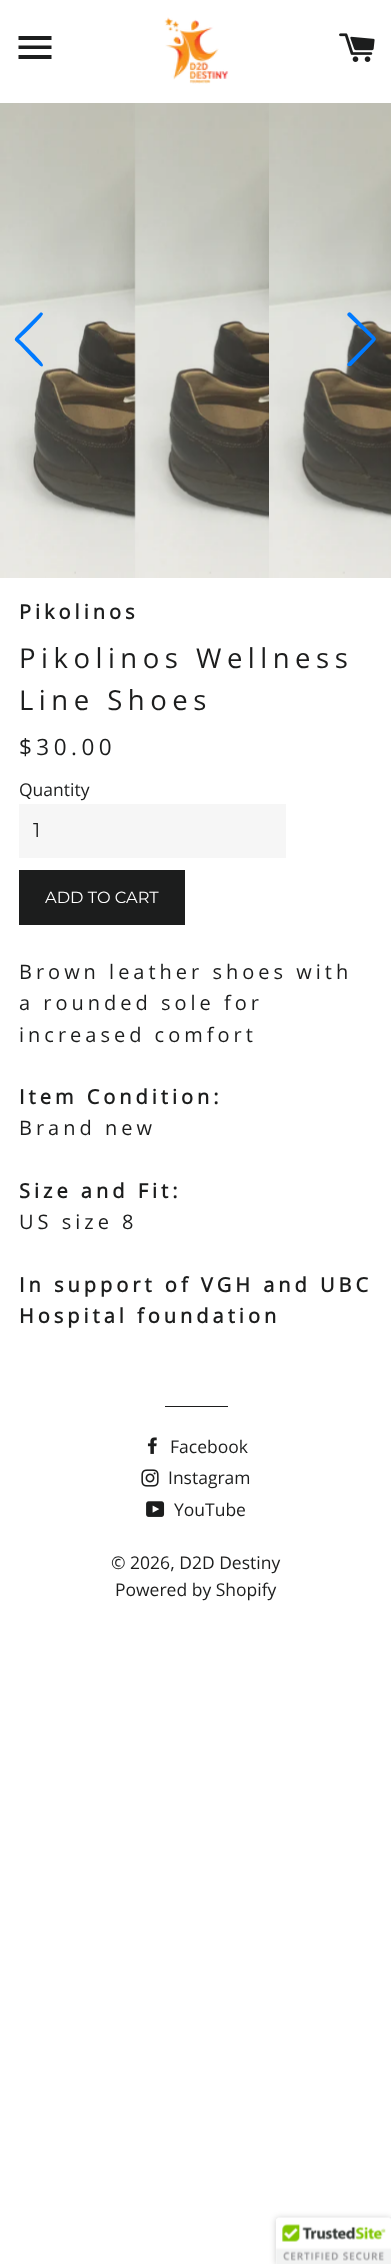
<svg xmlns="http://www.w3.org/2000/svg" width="391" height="2264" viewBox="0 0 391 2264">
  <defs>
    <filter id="blur1" x="-50%" y="-200%" width="200%" height="500%"><feGaussianBlur stdDeviation="3"/></filter>
  </defs>
  <rect width="100%" height="100%" fill="#ffffff"/>
  <path d="M18.5 36H51.5V40H18.5ZM18.5 45.5H51.5V49H18.5ZM18.5 55H51.5V59H18.5Z" fill="#1c1d1d"/>
  <image x="164" y="17" width="65" height="67" href="img1.png"/>
  <image x="339" y="33" width="36" height="29" href="img2.png"/>
  <image x="0" y="103" width="136" height="475" href="img3.png"/>
  <image x="134" y="103" width="135" height="475" href="img4.png"/>
  <image x="269" y="103" width="122" height="475" href="img5.png"/>
  <path d="M40 313C41 312 43 313 43 314C43 316 22 337 19 339C22 342 44 363 43 365C42 369 39 364 36 362L20 345C13 339 13 340 20 333Z" fill="#007aff"/>
  <path d="M348 366C347 365 347 364 348 363L372 339L348 316C347 315 347 314 348 313C349 312 350 312 351 313L375 337L376 339L375 341L351 366C350 366 349 366 348 366Z" fill="#007aff"/>
  <text x="19" y="619" font-family="Open Sans" font-size="20" font-weight="bold" letter-spacing="4" fill="#1c1d1d">Pikolinos</text>
  <text x="19" y="668" font-family="Open Sans" font-size="27.5" letter-spacing="5.5" fill="#1c1d1d">Pikolinos Wellness</text>
  <text x="19" y="710" font-family="Open Sans" font-size="27.5" letter-spacing="5.5" fill="#1c1d1d">Line Shoes</text>
  <text x="19" y="755" font-family="Open Sans" font-size="22.5" letter-spacing="4.5" fill="#1c1d1d">$30.00</text>
  <text x="19" y="796" font-family="Open Sans" font-size="17.5" fill="#1c1d1d">Quantity</text>
  <rect x="19" y="804" width="267" height="54" fill="#f6f6f6"/>
  <text x="33" y="837" font-family="Montserrat" font-size="20" font-weight="100" fill="#1c1d1d">1</text>
  <rect x="19" y="870" width="166" height="55" fill="#1c1d1d"/>
  <text x="45" y="903" font-family="Montserrat" font-size="16.25" font-weight="100" fill="#ffffff">ADD TO CART</text>
  <text x="19" y="979" font-family="Open Sans" font-size="20" letter-spacing="4" fill="#1c1d1d">Brown leather shoes with</text>
  <text x="19" y="1010" font-family="Open Sans" font-size="20" letter-spacing="4" fill="#1c1d1d">a rounded sole for</text>
  <text x="19" y="1042" font-family="Open Sans" font-size="20" letter-spacing="4" fill="#1c1d1d">increased comfort</text>
  <text x="19" y="1104" font-family="Open Sans" font-size="20" font-weight="bold" letter-spacing="4" fill="#1c1d1d">Item Condition:</text>
  <text x="19" y="1135" font-family="Open Sans" font-size="20" letter-spacing="4" fill="#1c1d1d">Brand new</text>
  <text x="19" y="1198" font-family="Open Sans" font-size="20" font-weight="bold" letter-spacing="4" fill="#1c1d1d">Size and Fit:</text>
  <text x="19" y="1229" font-family="Open Sans" font-size="20" letter-spacing="4" fill="#1c1d1d">US size 8</text>
  <text x="19" y="1292" font-family="Open Sans" font-size="20" font-weight="bold" letter-spacing="4" fill="#1c1d1d">In support of VGH and UBC</text>
  <text x="19" y="1323" font-family="Open Sans" font-size="20" font-weight="bold" letter-spacing="4" fill="#1c1d1d">Hospital foundation</text>
  <rect x="165" y="1406" width="63" height="1" fill="#1c1d1d"/>
  <image x="147" y="1437" width="10" height="17" href="img6.png"/>
  <text x="170" y="1453" font-family="Open Sans" font-size="17.5" fill="#1c1d1d">Facebook</text>
  <image x="141" y="1469" width="18" height="18" href="img7.png"/>
  <text x="168" y="1484" font-family="Open Sans" font-size="17.5" fill="#1c1d1d">Instagram</text>
  <image x="146" y="1501" width="19" height="16" href="img8.png"/>
  <text x="174" y="1516" font-family="Open Sans" font-size="17.5" fill="#1c1d1d">YouTube</text>
  <text x="111" y="1569" font-family="Open Sans" font-size="17.5" fill="#1c1d1d">© 2026, D2D Destiny</text>
  <text x="115" y="1596" font-family="Open Sans" font-size="17.5" fill="#1c1d1d">Powered by Shopify</text>
  <rect x="276" y="2218" width="115" height="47" rx="2.5" fill="#000000" fill-opacity="0.2" filter="url(#blur1)"/>
  <path d="M278.5 2218H391V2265H276V2220.5C276 2219 277 2218 278.5 2218Z" fill="#ffffff"/>
  <image x="276" y="2217" width="115" height="47" href="img9.png"/>
</svg>
